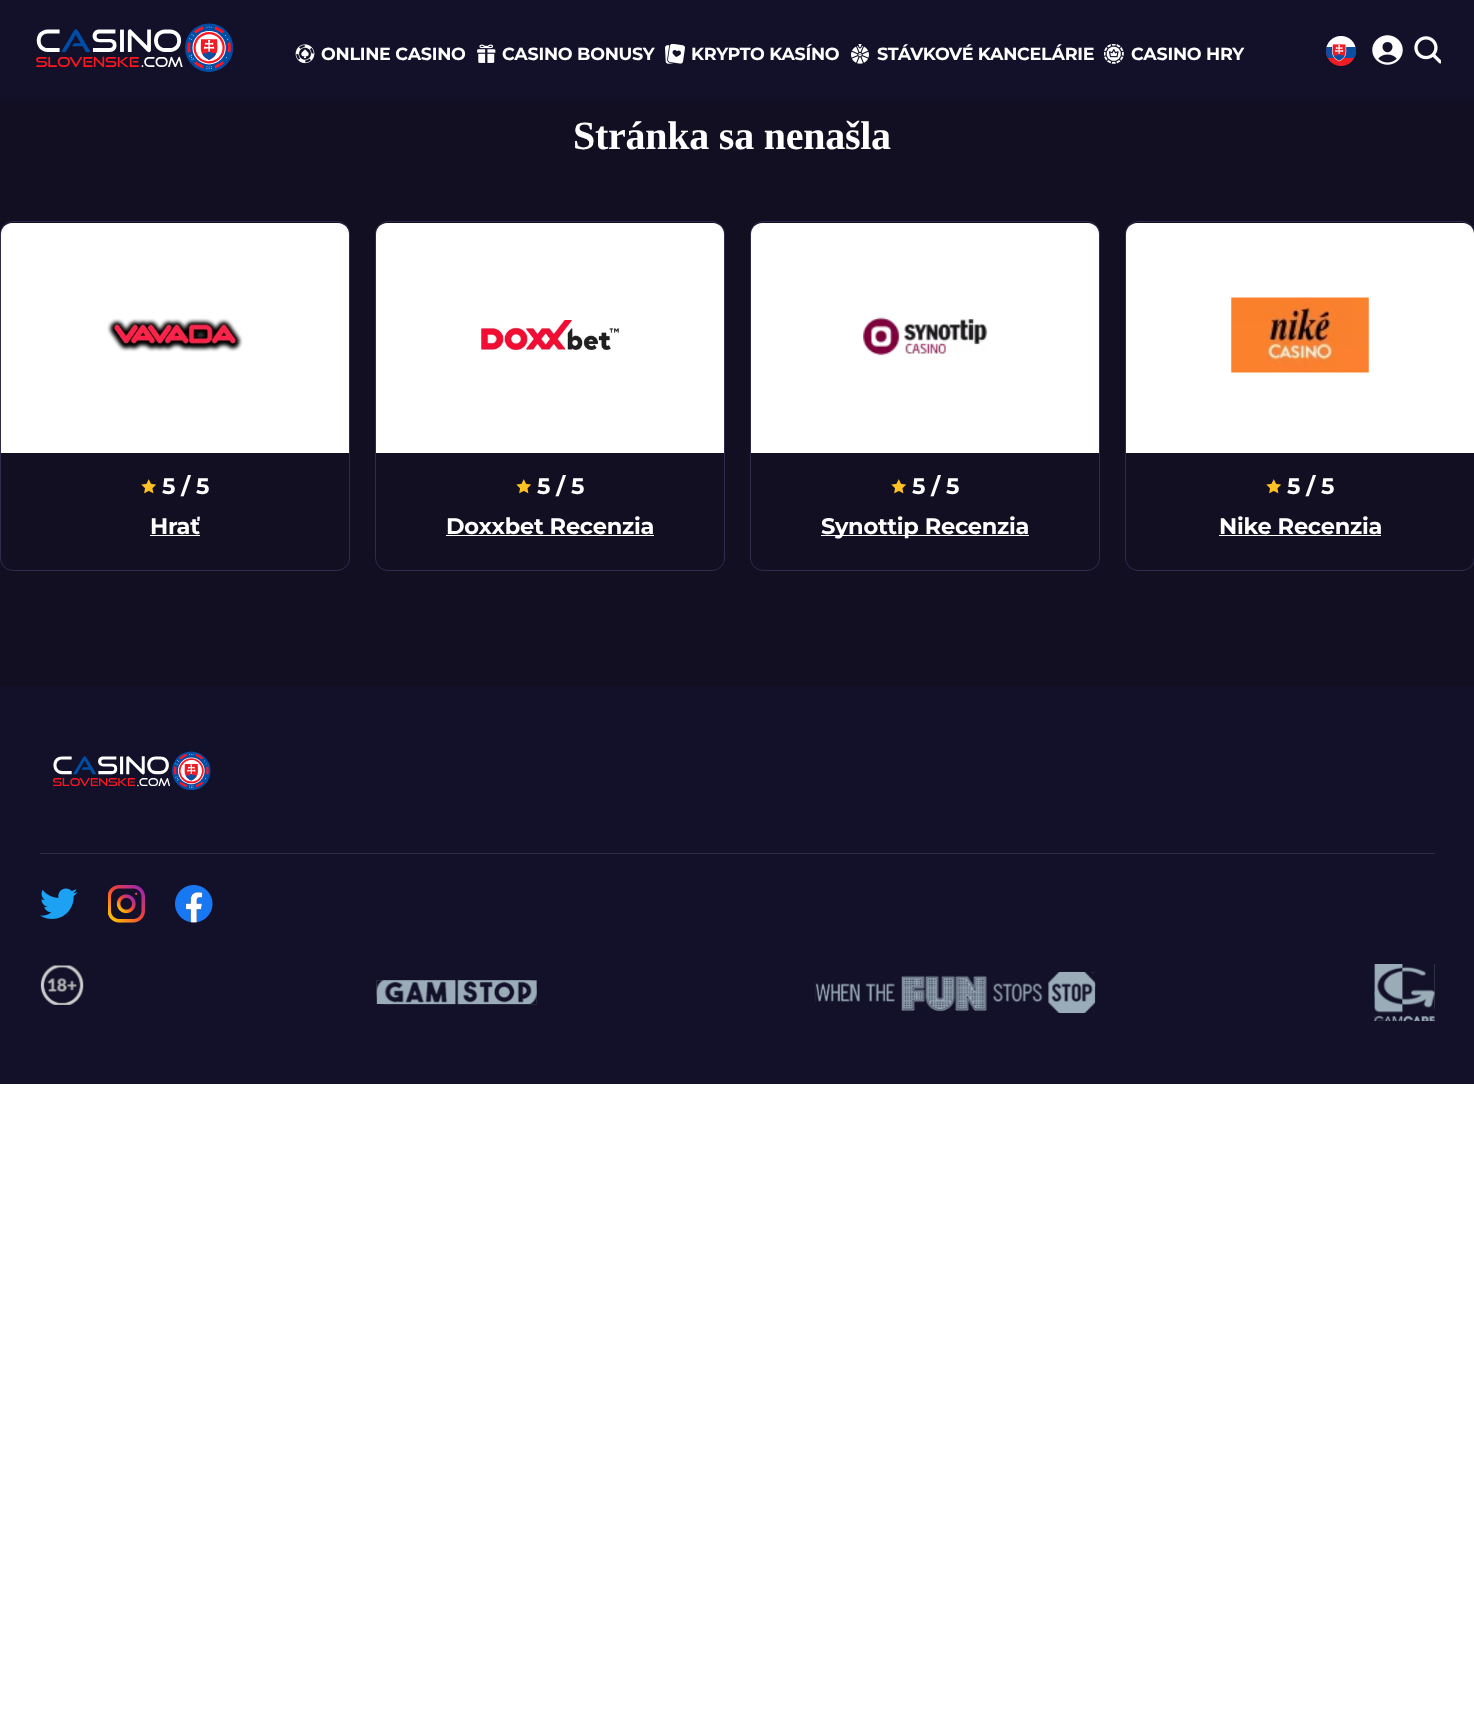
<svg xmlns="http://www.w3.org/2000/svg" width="1474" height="1735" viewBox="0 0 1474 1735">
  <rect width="100%" height="100%" fill="#ffffff"/>
  <rect x="0" y="100" width="1474" height="586" fill="#110f21"/>
  <rect x="0" y="0" width="1474" height="100" fill="#13112a"/>
  <image x="36" y="23" width="198" height="49" href="img1.png"/>
  <image x="295" y="44" width="20" height="20" href="img2.png"/>
  <text x="321" y="60" font-family="Montserrat" font-size="17.5" font-weight="bold" letter-spacing="-0.25" fill="#ffffff">ONLINE CASINO</text>
  <image x="477" y="44" width="19" height="19" href="img3.png"/>
  <text x="502" y="60" font-family="Montserrat" font-size="17.5" font-weight="bold" letter-spacing="-0.25" fill="#ffffff">CASINO BONUSY</text>
  <image x="665" y="44" width="20" height="20" href="img4.png"/>
  <text x="691" y="60" font-family="Montserrat" font-size="17.5" font-weight="bold" letter-spacing="-0.25" fill="#ffffff">KRYPTO KASÍNO</text>
  <image x="851" y="44" width="18" height="20" href="img5.png"/>
  <text x="877" y="60" font-family="Montserrat" font-size="17.5" font-weight="bold" letter-spacing="-0.25" fill="#ffffff">STÁVKOVÉ KANCELÁRIE</text>
  <image x="1104" y="44" width="20" height="20" href="img6.png"/>
  <text x="1131" y="60" font-family="Montserrat" font-size="17.5" font-weight="bold" letter-spacing="-0.25" fill="#ffffff">CASINO HRY</text>
  <image x="1326" y="36" width="30" height="30" href="img7.png"/>
  <image x="1372" y="35" width="31" height="30" href="img8.png"/>
  <image x="1414" y="36" width="27" height="28" href="img9.png"/>
  <text x="573" y="149" font-family="Liberation Serif" font-size="40" font-weight="bold" letter-spacing="-0.25" fill="#ffffff">Stránka sa nenašla</text>
  <rect x="0.5" y="221.5" width="349" height="349" rx="12.5" fill="none" stroke="#2d2c4e"/>
  <path d="M12 223H338C344 223 349 228 349 234V453H1V234C1 228 6 223 12 223Z" fill="#ffffff"/>
  <image x="107" y="318" width="136" height="34" href="img10.png"/>
  <image x="141" y="479" width="15" height="15" href="img11.png"/>
  <text x="162" y="494" font-family="Montserrat" font-size="22.5" font-weight="bold" letter-spacing="-0.25" fill="#ffffff">5 / 5</text>
  <text x="150" y="534" font-family="Montserrat" font-size="22.5" font-weight="bold" letter-spacing="-0.25" fill="#ffffff">Hrať</text>
  <rect x="150" y="535" width="50" height="1" fill="#ffffff"/>
  <rect x="375.5" y="221.5" width="349" height="349" rx="12.5" fill="none" stroke="#2d2c4e"/>
  <path d="M387 223H713C719 223 724 228 724 234V453H376V234C376 228 381 223 387 223Z" fill="#ffffff"/>
  <image x="481" y="320" width="138" height="30" href="img12.png"/>
  <image x="516" y="479" width="15" height="15" href="img11.png"/>
  <text x="537" y="494" font-family="Montserrat" font-size="22.5" font-weight="bold" letter-spacing="-0.25" fill="#ffffff">5 / 5</text>
  <text x="446" y="534" font-family="Montserrat" font-size="22.5" font-weight="bold" letter-spacing="-0.25" fill="#ffffff">Doxxbet Recenzia</text>
  <rect x="446" y="535" width="208" height="1" fill="#ffffff"/>
  <rect x="750.5" y="221.5" width="349" height="349" rx="12.5" fill="none" stroke="#2d2c4e"/>
  <path d="M762 223H1088C1094 223 1099 228 1099 234V453H751V234C751 228 756 223 762 223Z" fill="#ffffff"/>
  <image x="863" y="317" width="125" height="39" href="img13.png"/>
  <image x="891" y="479" width="15" height="15" href="img11.png"/>
  <text x="912" y="494" font-family="Montserrat" font-size="22.5" font-weight="bold" letter-spacing="-0.25" fill="#ffffff">5 / 5</text>
  <rect x="821" y="535" width="208" height="1" fill="#ffffff"/>
  <text x="821" y="534" font-family="Montserrat" font-size="22.5" font-weight="bold" letter-spacing="-0.25" fill="#ffffff">Synottip Recenzia</text>
  <rect x="1125.5" y="221.5" width="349" height="349" rx="12.5" fill="none" stroke="#2d2c4e"/>
  <path d="M1137 223H1463C1469 223 1474 228 1474 234V453H1126V234C1126 228 1131 223 1137 223Z" fill="#ffffff"/>
  <image x="1231" y="297" width="138" height="76" href="img14.png"/>
  <image x="1266" y="479" width="15" height="15" href="img11.png"/>
  <text x="1287" y="494" font-family="Montserrat" font-size="22.5" font-weight="bold" letter-spacing="-0.25" fill="#ffffff">5 / 5</text>
  <text x="1219" y="534" font-family="Montserrat" font-size="22.5" font-weight="bold" letter-spacing="-0.25" fill="#ffffff">Nike Recenzia</text>
  <rect x="1219" y="535" width="162" height="1" fill="#ffffff"/>
  <rect x="0" y="686" width="1474" height="398" fill="#13112a"/>
  <image x="53" y="751" width="158" height="39" href="img15.png"/>
  <rect x="40" y="853" width="1395" height="1" fill="#2d2c4e"/>
  <image x="40" y="888" width="38" height="31" href="img16.png"/>
  <image x="108" y="885" width="37" height="38" href="img17.png"/>
  <image x="175" y="885" width="38" height="38" href="img18.png"/>
  <image x="40" y="965" width="44" height="40" href="img19.png"/>
  <image x="376" y="980" width="161" height="25" href="img20.png"/>
  <image x="815" y="971" width="281" height="43" href="img21.png"/>
  <image x="1374" y="964" width="61" height="57" href="img22.png"/>
</svg>
